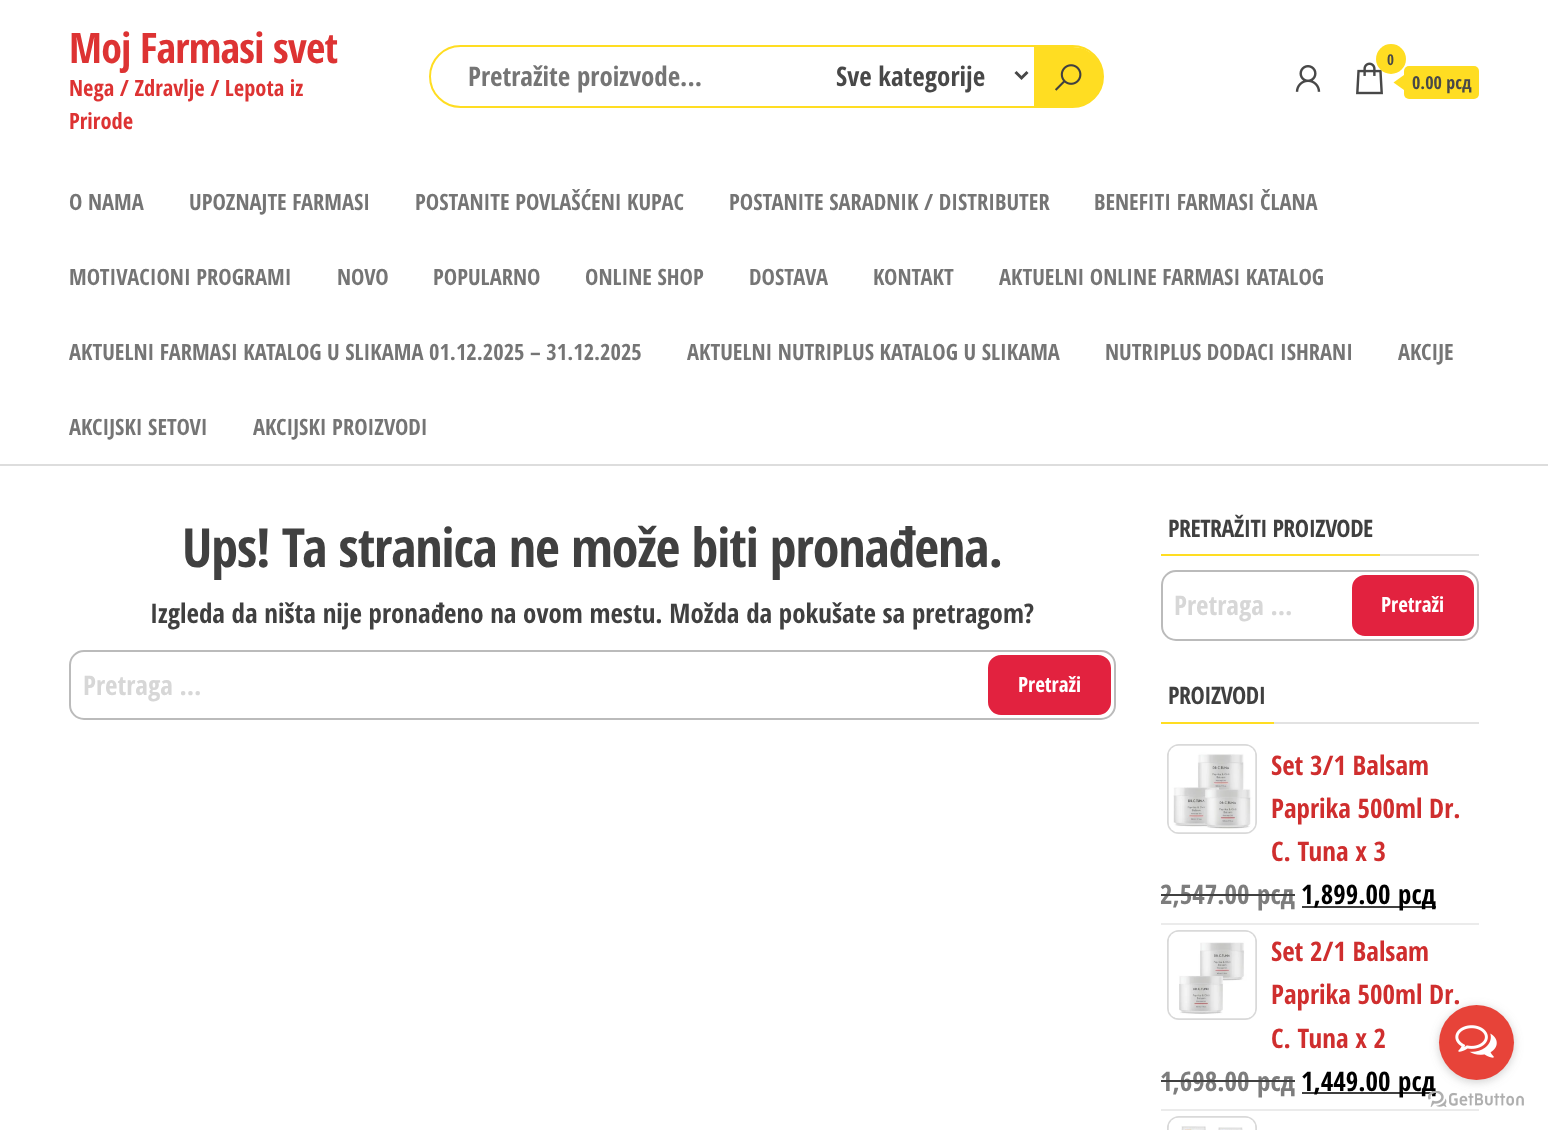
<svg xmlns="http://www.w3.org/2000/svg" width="1548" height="1130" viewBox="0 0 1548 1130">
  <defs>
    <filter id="blur1" x="-50%" y="-200%" width="200%" height="500%"><feGaussianBlur stdDeviation="5"/></filter>
  </defs>
  <rect width="100%" height="100%" fill="#ffffff"/>
  <text x="69" y="63" font-family="Open Sans Condensed" font-size="42" font-weight="bold" letter-spacing="-0.8" fill="#dd3333">Moj Farmasi svet</text>
  <text x="69" y="96" font-family="Open Sans Condensed" font-size="22.5" font-weight="bold" fill="#dd3333">Nega / Zdravlje / Lepota iz</text>
  <text x="69" y="129" font-family="Open Sans Condensed" font-size="22.5" font-weight="bold" fill="#dd3333">Prirode</text>
  <rect x="430" y="46" width="673" height="61" rx="30.5" fill="none" stroke="#ffdd22" stroke-width="2"/>
  <text x="468" y="86" font-family="Open Sans Condensed" font-size="27" font-weight="bold" fill="#757575">Pretražite proizvode...</text>
  <path d="M1015.5 72L1021.5 78L1027.5 72" fill="none" stroke="#484848" stroke-width="3"/>
  <text x="836" y="86" font-family="Open Sans Condensed" font-size="27" font-weight="bold" fill="#484848">Sve kategorije</text>
  <path d="M1034 47H1073C1089.5 47 1103 60.5 1103 77C1103 93.5 1089.5 107 1073 107H1034Z" fill="#ffdd22"/>
  <image x="1055" y="64" width="27" height="27" href="img1.png"/>
  <image x="1295" y="65" width="26" height="27" href="img2.png"/>
  <image x="1356" y="62" width="27" height="33" href="img3.png"/>
  <circle cx="1391" cy="59" r="15" fill="#ffdd22"/>
  <text x="1387" y="65" font-family="Open Sans Condensed" font-size="15" font-weight="bold" fill="#484848">0</text>
  <rect x="1404" y="66" width="75" height="33" rx="5" fill="#ffdd22"/>
  <path d="M1404 75V90L1393.5 82.5Z" fill="#ffdd22"/>
  <text x="1412" y="89" font-family="Open Sans Condensed" font-size="18" font-weight="bold" fill="#484848">0.00 рсд</text>
  <rect x="0" y="464" width="1548" height="2" fill="#dddddd"/>
  <text x="69" y="210" font-family="Open Sans Condensed" font-size="22.5" font-weight="bold" fill="#757575">O NAMA</text>
  <text x="189" y="210" font-family="Open Sans Condensed" font-size="22.5" font-weight="bold" fill="#757575">UPOZNAJTE FARMASI</text>
  <text x="415" y="210" font-family="Open Sans Condensed" font-size="22.5" font-weight="bold" fill="#757575">POSTANITE POVLAŠĆENI KUPAC</text>
  <text x="729" y="210" font-family="Open Sans Condensed" font-size="22.5" font-weight="bold" fill="#757575">POSTANITE SARADNIK / DISTRIBUTER</text>
  <text x="1094" y="210" font-family="Open Sans Condensed" font-size="22.5" font-weight="bold" fill="#757575">BENEFITI FARMASI ČLANA</text>
  <text x="69" y="285" font-family="Open Sans Condensed" font-size="22.5" font-weight="bold" fill="#757575">MOTIVACIONI PROGRAMI</text>
  <text x="337" y="285" font-family="Open Sans Condensed" font-size="22.5" font-weight="bold" fill="#757575">NOVO</text>
  <text x="433" y="285" font-family="Open Sans Condensed" font-size="22.5" font-weight="bold" fill="#757575">POPULARNO</text>
  <text x="585" y="285" font-family="Open Sans Condensed" font-size="22.5" font-weight="bold" fill="#757575">ONLINE SHOP</text>
  <text x="749" y="285" font-family="Open Sans Condensed" font-size="22.5" font-weight="bold" fill="#757575">DOSTAVA</text>
  <text x="873" y="285" font-family="Open Sans Condensed" font-size="22.5" font-weight="bold" fill="#757575">KONTAKT</text>
  <text x="999" y="285" font-family="Open Sans Condensed" font-size="22.5" font-weight="bold" fill="#757575">AKTUELNI ONLINE FARMASI KATALOG</text>
  <text x="69" y="360" font-family="Open Sans Condensed" font-size="22.5" font-weight="bold" fill="#757575">AKTUELNI FARMASI KATALOG U SLIKAMA 01.12.2025 – 31.12.2025</text>
  <text x="687" y="360" font-family="Open Sans Condensed" font-size="22.5" font-weight="bold" fill="#757575">AKTUELNI NUTRIPLUS KATALOG U SLIKAMA</text>
  <text x="1105" y="360" font-family="Open Sans Condensed" font-size="22.5" font-weight="bold" fill="#757575">NUTRIPLUS DODACI ISHRANI</text>
  <text x="1398" y="360" font-family="Open Sans Condensed" font-size="22.5" font-weight="bold" fill="#757575">AKCIJE</text>
  <text x="69" y="435" font-family="Open Sans Condensed" font-size="22.5" font-weight="bold" fill="#757575">AKCIJSKI SETOVI</text>
  <text x="253" y="435" font-family="Open Sans Condensed" font-size="22.5" font-weight="bold" fill="#757575">AKCIJSKI PROIZVODI</text>
  <text x="182" y="567" font-family="Open Sans Condensed" font-size="54" font-weight="bold" letter-spacing="-1.1" fill="#404040">Ups! Ta stranica ne može biti pronađena.</text>
  <text x="150" y="623" font-family="Open Sans Condensed" font-size="27" font-weight="bold" fill="#404040">Izgleda da ništa nije pronađeno na ovom mestu. Možda da pokušate sa pretragom?</text>
  <rect x="70" y="651" width="1045" height="68" rx="14" fill="none" stroke="#bbbbbb" stroke-width="2"/>
  <text x="83" y="695" font-family="Open Sans Condensed" font-size="27" font-weight="bold" fill="#d7d7d7">Pretraga …</text>
  <rect x="987" y="654" width="125" height="62" rx="14" fill="#e2223f" stroke="#ffffff" stroke-width="2"/>
  <text x="1018" y="692" font-family="Open Sans Condensed" font-size="21" font-weight="bold" fill="#ffffff">Pretraži</text>
  <rect x="1380" y="554" width="99" height="2" fill="#e2e2e2"/>
  <text x="1168" y="537" font-family="Open Sans Condensed" font-size="24" font-weight="bold" letter-spacing="-0.5" fill="#404040">PRETRAŽITI PROIZVODE</text>
  <rect x="1161" y="554" width="219" height="2" fill="#ffdd22"/>
  <rect x="1162" y="571" width="316" height="69" rx="14" fill="none" stroke="#bbbbbb" stroke-width="2"/>
  <text x="1174" y="615" font-family="Open Sans Condensed" font-size="27" font-weight="bold" fill="#d7d7d7">Pretraga …</text>
  <rect x="1351" y="574" width="124" height="63" rx="14" fill="#e2223f" stroke="#ffffff" stroke-width="2"/>
  <text x="1381" y="612" font-family="Open Sans Condensed" font-size="21" font-weight="bold" fill="#ffffff">Pretraži</text>
  <rect x="1274" y="722" width="205" height="2" fill="#e2e2e2"/>
  <text x="1168" y="704" font-family="Open Sans Condensed" font-size="24" font-weight="bold" letter-spacing="-0.5" fill="#404040">PROIZVODI</text>
  <rect x="1161" y="722" width="113" height="2" fill="#ffdd22"/>
  <rect x="1161" y="923" width="318" height="2" fill="#ebebeb"/>
  <rect x="1168" y="745" width="88" height="88" rx="11" fill="none" stroke="#d9d9d9" stroke-width="2"/>
  <image x="1168" y="745" width="88" height="88" href="img4.png"/>
  <text x="1271" y="775" font-family="Open Sans Condensed" font-size="27" font-weight="bold" fill="#cf2e2e">Set 3/1 Balsam</text>
  <text x="1271" y="818" font-family="Open Sans Condensed" font-size="27" font-weight="bold" fill="#cf2e2e">Paprika 500ml Dr.</text>
  <text x="1271" y="861" font-family="Open Sans Condensed" font-size="27" font-weight="bold" fill="#cf2e2e">C. Tuna x 3</text>
  <text x="1160" y="904" font-family="Open Sans Condensed" font-size="27" font-weight="bold" fill="#7d7d7d">2,547.00</text>
  <rect x="1161" y="894" width="96" height="2" fill="#404040"/>
  <text x="1257" y="904" font-family="Open Sans Condensed" font-size="27" font-weight="bold" fill="#7d7d7d">рсд</text>
  <rect x="1257" y="894" width="38" height="2" fill="#404040"/>
  <rect x="1302" y="906" width="134" height="2" fill="#404040"/>
  <text x="1301" y="904" font-family="Open Sans Condensed" font-size="27" font-weight="bold" fill="#000000">1,899.00</text>
  <text x="1398" y="904" font-family="Open Sans Condensed" font-size="27" font-weight="bold" fill="#000000">рсд</text>
  <rect x="1161" y="1109" width="318" height="2" fill="#ebebeb"/>
  <rect x="1168" y="931" width="88" height="88" rx="11" fill="none" stroke="#d9d9d9" stroke-width="2"/>
  <image x="1168" y="931" width="88" height="88" href="img5.png"/>
  <text x="1271" y="961" font-family="Open Sans Condensed" font-size="27" font-weight="bold" fill="#cf2e2e">Set 2/1 Balsam</text>
  <text x="1271" y="1004" font-family="Open Sans Condensed" font-size="27" font-weight="bold" fill="#cf2e2e">Paprika 500ml Dr.</text>
  <text x="1271" y="1048" font-family="Open Sans Condensed" font-size="27" font-weight="bold" fill="#cf2e2e">C. Tuna x 2</text>
  <text x="1160" y="1091" font-family="Open Sans Condensed" font-size="27" font-weight="bold" fill="#7d7d7d">1,698.00</text>
  <rect x="1161" y="1080" width="96" height="2" fill="#404040"/>
  <text x="1257" y="1091" font-family="Open Sans Condensed" font-size="27" font-weight="bold" fill="#7d7d7d">рсд</text>
  <rect x="1257" y="1080" width="38" height="2" fill="#404040"/>
  <rect x="1302" y="1092" width="134" height="2" fill="#404040"/>
  <text x="1301" y="1091" font-family="Open Sans Condensed" font-size="27" font-weight="bold" fill="#000000">1,449.00</text>
  <text x="1398" y="1091" font-family="Open Sans Condensed" font-size="27" font-weight="bold" fill="#000000">рсд</text>
  <rect x="1168" y="1117" width="88" height="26" rx="11" fill="none" stroke="#d9d9d9" stroke-width="2"/>
  <image x="1168" y="1117" width="88" height="13" href="img6.png"/>
  <image x="1428" y="1091" width="96" height="16" href="img8.png"/>
  <rect x="1439" y="1007" width="75" height="75" rx="37.5" fill="#888888" fill-opacity="0.4" filter="url(#blur1)"/>
  <circle cx="1476.5" cy="1042.5" r="37.5" fill="#e74339"/>
  <image x="1455" y="1025" width="42" height="33" href="img7.png"/>
</svg>
